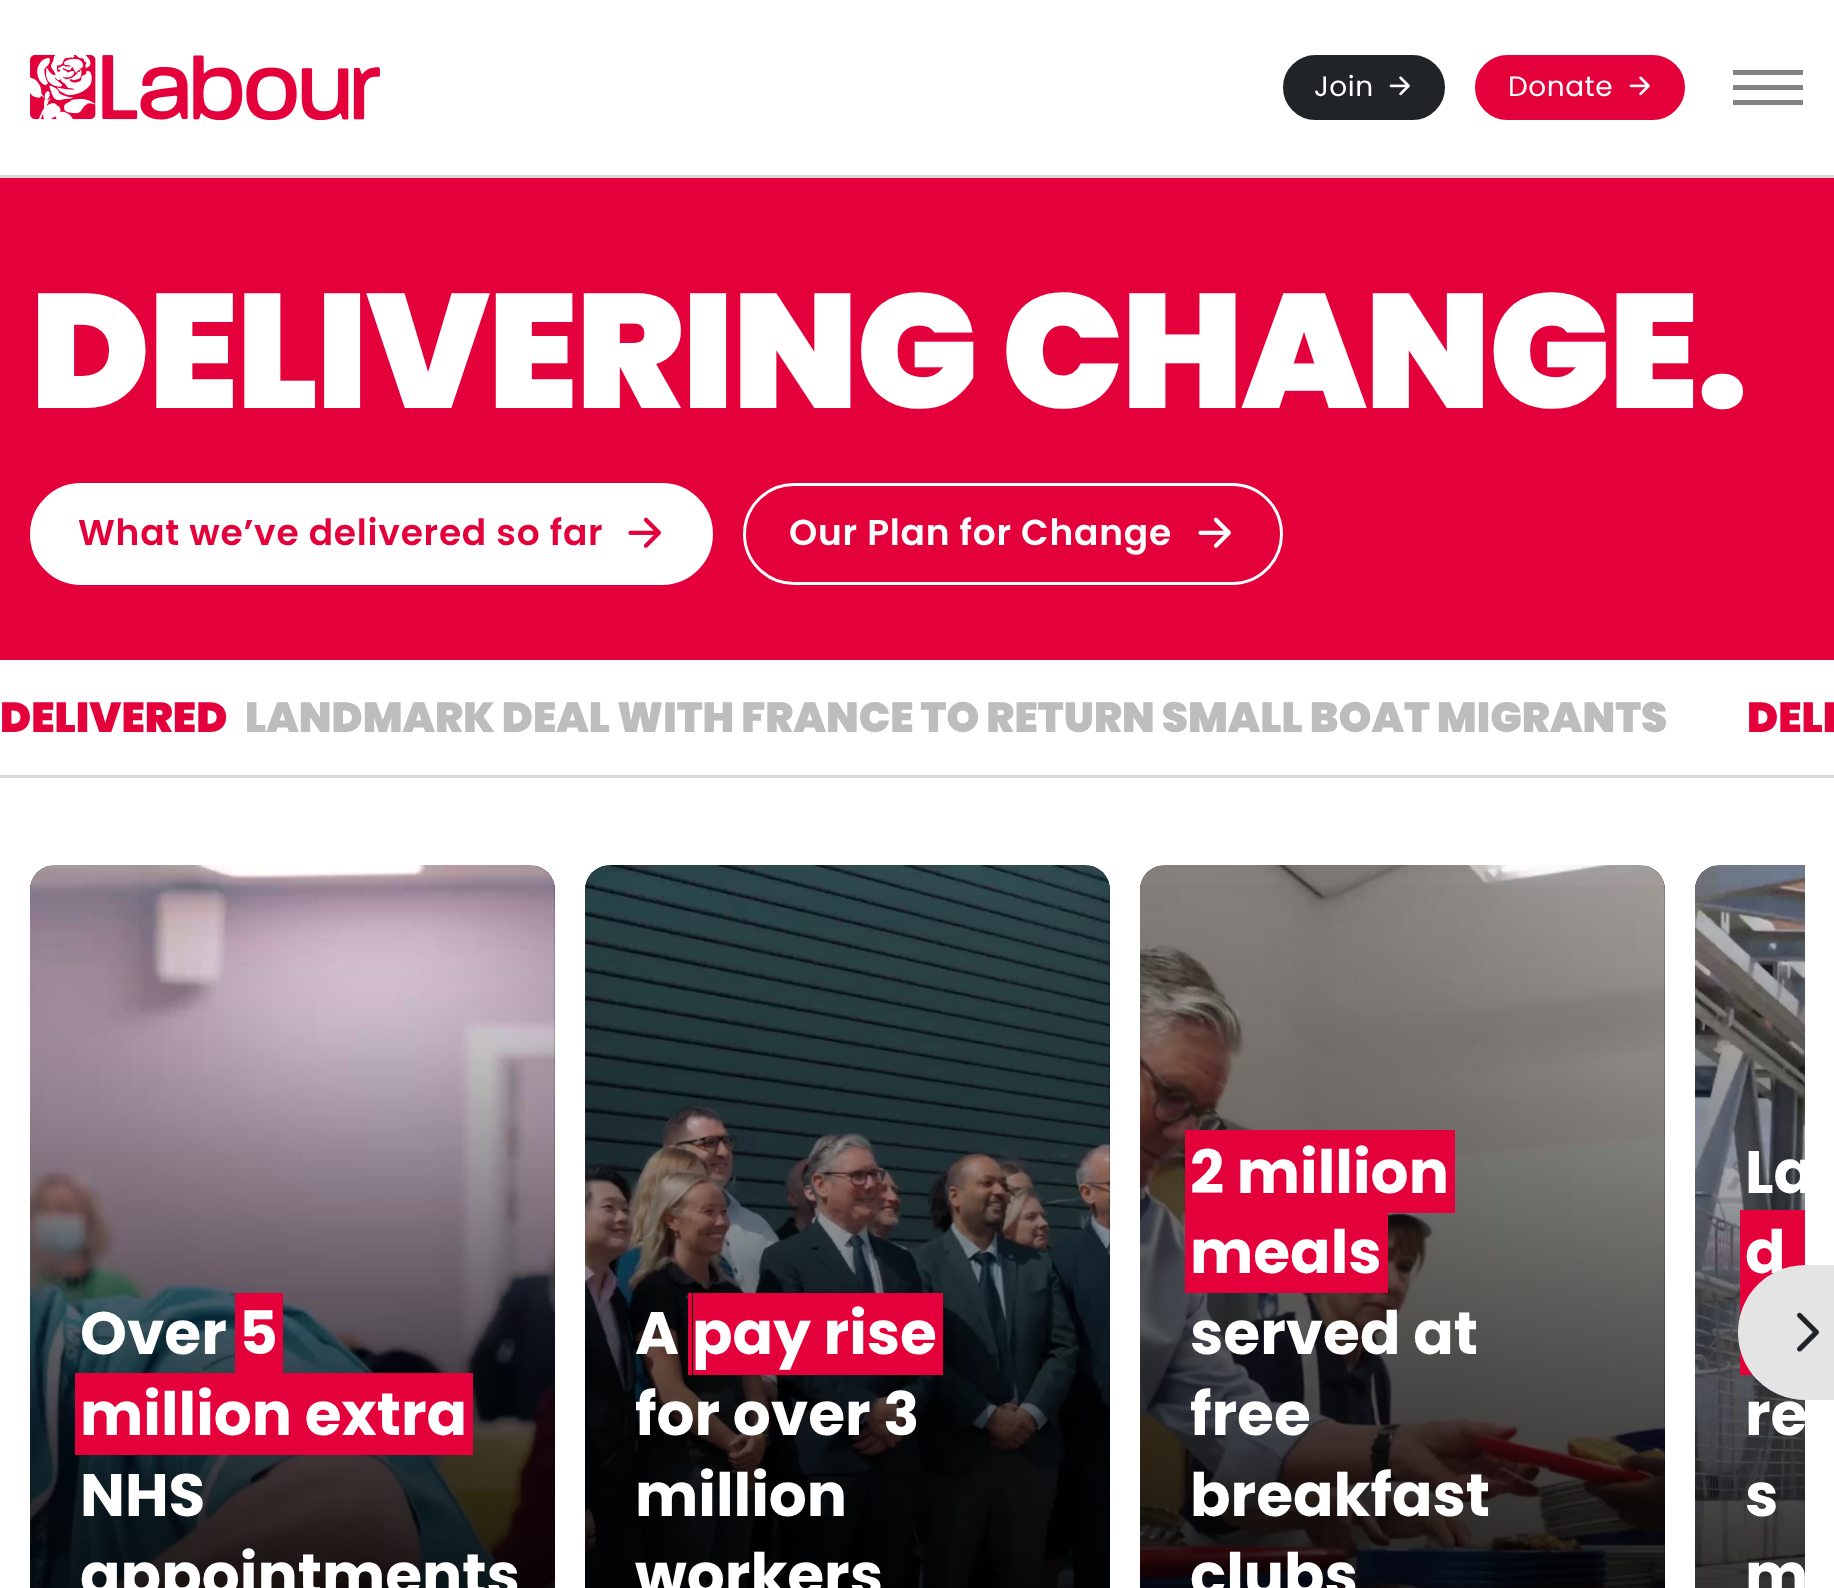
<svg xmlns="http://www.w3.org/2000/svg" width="1834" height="1588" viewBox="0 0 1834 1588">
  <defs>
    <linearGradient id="g1" gradientUnits="userSpaceOnUse" x1="292" y1="865" x2="293" y2="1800"><stop offset="0" stop-color="#000000" stop-opacity="0"/><stop offset="1" stop-color="#000000"/></linearGradient>
    <linearGradient id="g2" gradientUnits="userSpaceOnUse" x1="848" y1="865" x2="848" y2="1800"><stop offset="0" stop-color="#000000" stop-opacity="0"/><stop offset="1" stop-color="#000000"/></linearGradient>
    <linearGradient id="g3" gradientUnits="userSpaceOnUse" x1="1403" y1="865" x2="1403" y2="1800"><stop offset="0" stop-color="#000000" stop-opacity="0"/><stop offset="1" stop-color="#000000"/></linearGradient>
    <linearGradient id="g4" gradientUnits="userSpaceOnUse" x1="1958" y1="865" x2="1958" y2="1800"><stop offset="0" stop-color="#000000" stop-opacity="0"/><stop offset="1" stop-color="#000000"/></linearGradient>
    <clipPath id="clip1"><rect x="1695" y="865" width="110" height="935"/></clipPath>
  </defs>
  <rect width="100%" height="100%" fill="#ffffff"/>
  <rect x="0" y="175" width="1834" height="3" fill="#dadada"/>
  <image x="30" y="55" width="350" height="65" href="img1.png"/>
  <rect x="1284.5" y="56.5" width="159" height="62" rx="31" fill="#212427" stroke="#212427" stroke-width="3"/>
  <text x="1314" y="96" font-family="Poppins" font-size="28" letter-spacing="0.5" fill="#ffffff">Join</text>
  <image x="1389" y="76" width="21" height="20" href="img2.png"/>
  <rect x="1476.5" y="56.5" width="207" height="62" rx="31" fill="#e4003b" stroke="#e4003b" stroke-width="3"/>
  <text x="1508" y="96" font-family="Poppins" font-size="28" letter-spacing="0.5" fill="#ffffff">Donate</text>
  <image x="1629" y="76" width="21" height="20" href="img3.png"/>
  <rect x="1733" y="70" width="70" height="5" fill="#828282"/>
  <rect x="1733" y="85" width="70" height="5" fill="#828282"/>
  <rect x="1733" y="100" width="70" height="5" fill="#828282"/>
  <rect x="0" y="178" width="1834" height="482" fill="#e4003b"/>
  <text x="30" y="408" font-family="Poppins" font-size="162" font-weight="900" letter-spacing="-2.1" fill="#ffffff">DELIVERING CHANGE.</text>
  <rect x="31.5" y="484.5" width="680" height="99" rx="49.5" fill="#ffffff" stroke="#ffffff" stroke-width="3"/>
  <text x="78" y="545" font-family="Poppins" font-size="36" font-weight="600" letter-spacing="0.75" fill="#e4003b">What we’ve delivered so far</text>
  <image x="628" y="517" width="33" height="31" href="img4.png"/>
  <rect x="744.5" y="484.5" width="537" height="99" rx="49.5" fill="none" stroke="#ffffff" stroke-width="3"/>
  <text x="789" y="545" font-family="Poppins" font-size="36" font-weight="600" letter-spacing="0.75" fill="#ffffff">Our Plan for Change</text>
  <image x="1198" y="517" width="33" height="31" href="img5.png"/>
  <rect x="0" y="775" width="1834" height="3" fill="#dadada"/>
  <text x="0" y="732" font-family="Poppins" font-size="42" font-weight="900" fill="#e4003b">DELIVERED</text>
  <text x="245" y="732" word-spacing="-0.25" font-family="Poppins" font-size="42" font-weight="900" fill="#bdbdbd">LANDMARK DEAL WITH FRANCE TO RETURN SMALL BOAT MIGRANTS</text>
  <text x="1747" y="732" font-family="Poppins" font-size="42" font-weight="900" fill="#e4003b">DELI</text>
  <image x="30" y="866" width="525" height="722" href="img7.png"/>
  <image x="30" y="865" width="525" height="723" href="img6.png"/>
  <rect x="30" y="885" width="525" height="703" fill="url(#g1)"/>
  <text x="80" y="1354" font-family="Poppins" font-size="59.75" font-weight="bold" fill="#ffffff">Over</text>
  <rect x="240" y="1293" width="38" height="80" fill="#e4003b"/>
  <text x="239" y="1354" font-family="Poppins" font-size="59.75" font-weight="bold" fill="#ffffff">5</text>
  <rect x="235" y="1293" width="5" height="82" fill="#e4003b"/>
  <rect x="278" y="1293" width="5" height="82" fill="#e4003b"/>
  <rect x="80" y="1373" width="393" height="82" fill="#e4003b"/>
  <text x="80" y="1435" font-family="Poppins" font-size="59.75" font-weight="bold" fill="#ffffff">million extra</text>
  <rect x="75" y="1373" width="5" height="82" fill="#e4003b"/>
  <text x="80" y="1516" font-family="Poppins" font-size="59.75" font-weight="bold" fill="#ffffff">NHS</text>
  <text x="80" y="1596" font-family="Poppins" font-size="59.75" font-weight="bold" fill="#ffffff">appointments</text>
  <image x="585" y="866" width="525" height="722" href="img9.png"/>
  <image x="585" y="865" width="525" height="723" href="img8.png"/>
  <rect x="585" y="895" width="525" height="693" fill="url(#g2)"/>
  <text x="635" y="1354" font-family="Poppins" font-size="59.75" font-weight="bold" fill="#ffffff">A</text>
  <rect x="693" y="1293" width="250" height="82" fill="#e4003b"/>
  <text x="692" y="1354" font-family="Poppins" font-size="59.75" font-weight="bold" fill="#ffffff">pay rise</text>
  <rect x="688" y="1293" width="4" height="82" fill="#e4003b"/>
  <text x="635" y="1435" font-family="Poppins" font-size="59.75" font-weight="bold" fill="#ffffff">for over 3</text>
  <text x="635" y="1516" font-family="Poppins" font-size="59.75" font-weight="bold" fill="#ffffff">million</text>
  <text x="635" y="1596" font-family="Poppins" font-size="59.75" font-weight="bold" fill="#ffffff">workers</text>
  <image x="1140" y="866" width="525" height="722" href="img11.png"/>
  <image x="1140" y="865" width="525" height="723" href="img10.png"/>
  <rect x="1140" y="885" width="525" height="703" fill="url(#g3)"/>
  <path d="M1185 1130H1190V1212H1445V1213H1185Z" fill="#e4003b"/>
  <path d="M1195 1212V1213H1455V1130H1450V1212Z" fill="#e4003b"/>
  <rect x="1190" y="1130" width="260" height="82" fill="#e4003b"/>
  <text x="1190" y="1193" font-family="Poppins" font-size="59.75" font-weight="bold" fill="#ffffff">2 million</text>
  <path d="M1185 1210H1190V1292H1378V1293H1185Z" fill="#e4003b"/>
  <path d="M1195 1292V1293H1388V1210H1382V1292Z" fill="#e4003b"/>
  <rect x="1190" y="1213" width="192" height="79" fill="#e4003b"/>
  <text x="1190" y="1273" font-family="Poppins" font-size="59.75" font-weight="bold" fill="#ffffff">meals</text>
  <text x="1190" y="1354" font-family="Poppins" font-size="59.75" font-weight="bold" fill="#ffffff">served at</text>
  <text x="1190" y="1435" font-family="Poppins" font-size="59.75" font-weight="bold" fill="#ffffff">free</text>
  <text x="1190" y="1516" font-family="Poppins" font-size="59.75" font-weight="bold" fill="#ffffff">breakfast</text>
  <text x="1190" y="1596" font-family="Poppins" font-size="59.75" font-weight="bold" fill="#ffffff">clubs</text>
  <image x="1695" y="866" width="19" height="24" href="img13.png"/>
  <image x="1695" y="865" width="110" height="723" href="img12.png"/>
  <rect x="1695" y="885" width="110" height="703" fill="url(#g4)"/>
  <g clip-path="url(#clip1)">
    <text x="1745" y="1193" font-family="Poppins" font-size="59.75" font-weight="bold" fill="#ffffff">La</text>
  </g>
  <path d="M1740 1210H1745V1292H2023V1293H1740Z" fill="#e4003b"/>
  <rect x="1745" y="1210" width="60" height="82" fill="#e4003b"/>
  <text x="1745" y="1273" font-family="Poppins" font-size="59.75" font-weight="bold" fill="#ffffff">d</text>
  <rect x="1740" y="1293" width="13" height="82" fill="#e4003b"/>
  <g clip-path="url(#clip1)">
    <text x="1745" y="1435" font-family="Poppins" font-size="59.75" font-weight="bold" fill="#ffffff">re</text>
  </g>
  <text x="1745" y="1516" font-family="Poppins" font-size="59.75" font-weight="bold" fill="#ffffff">s</text>
  <text x="1745" y="1596" font-family="Poppins" font-size="59.75" font-weight="bold" fill="#ffffff">m</text>
  <path d="M1805.5 1265H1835V1400H1805.5C1768 1400 1738 1370 1738 1332.5C1738 1295 1768 1265 1805.5 1265Z" fill="#e4e4e4"/>
  <image x="1797" y="1312" width="22" height="40" href="img14.png"/>
</svg>
